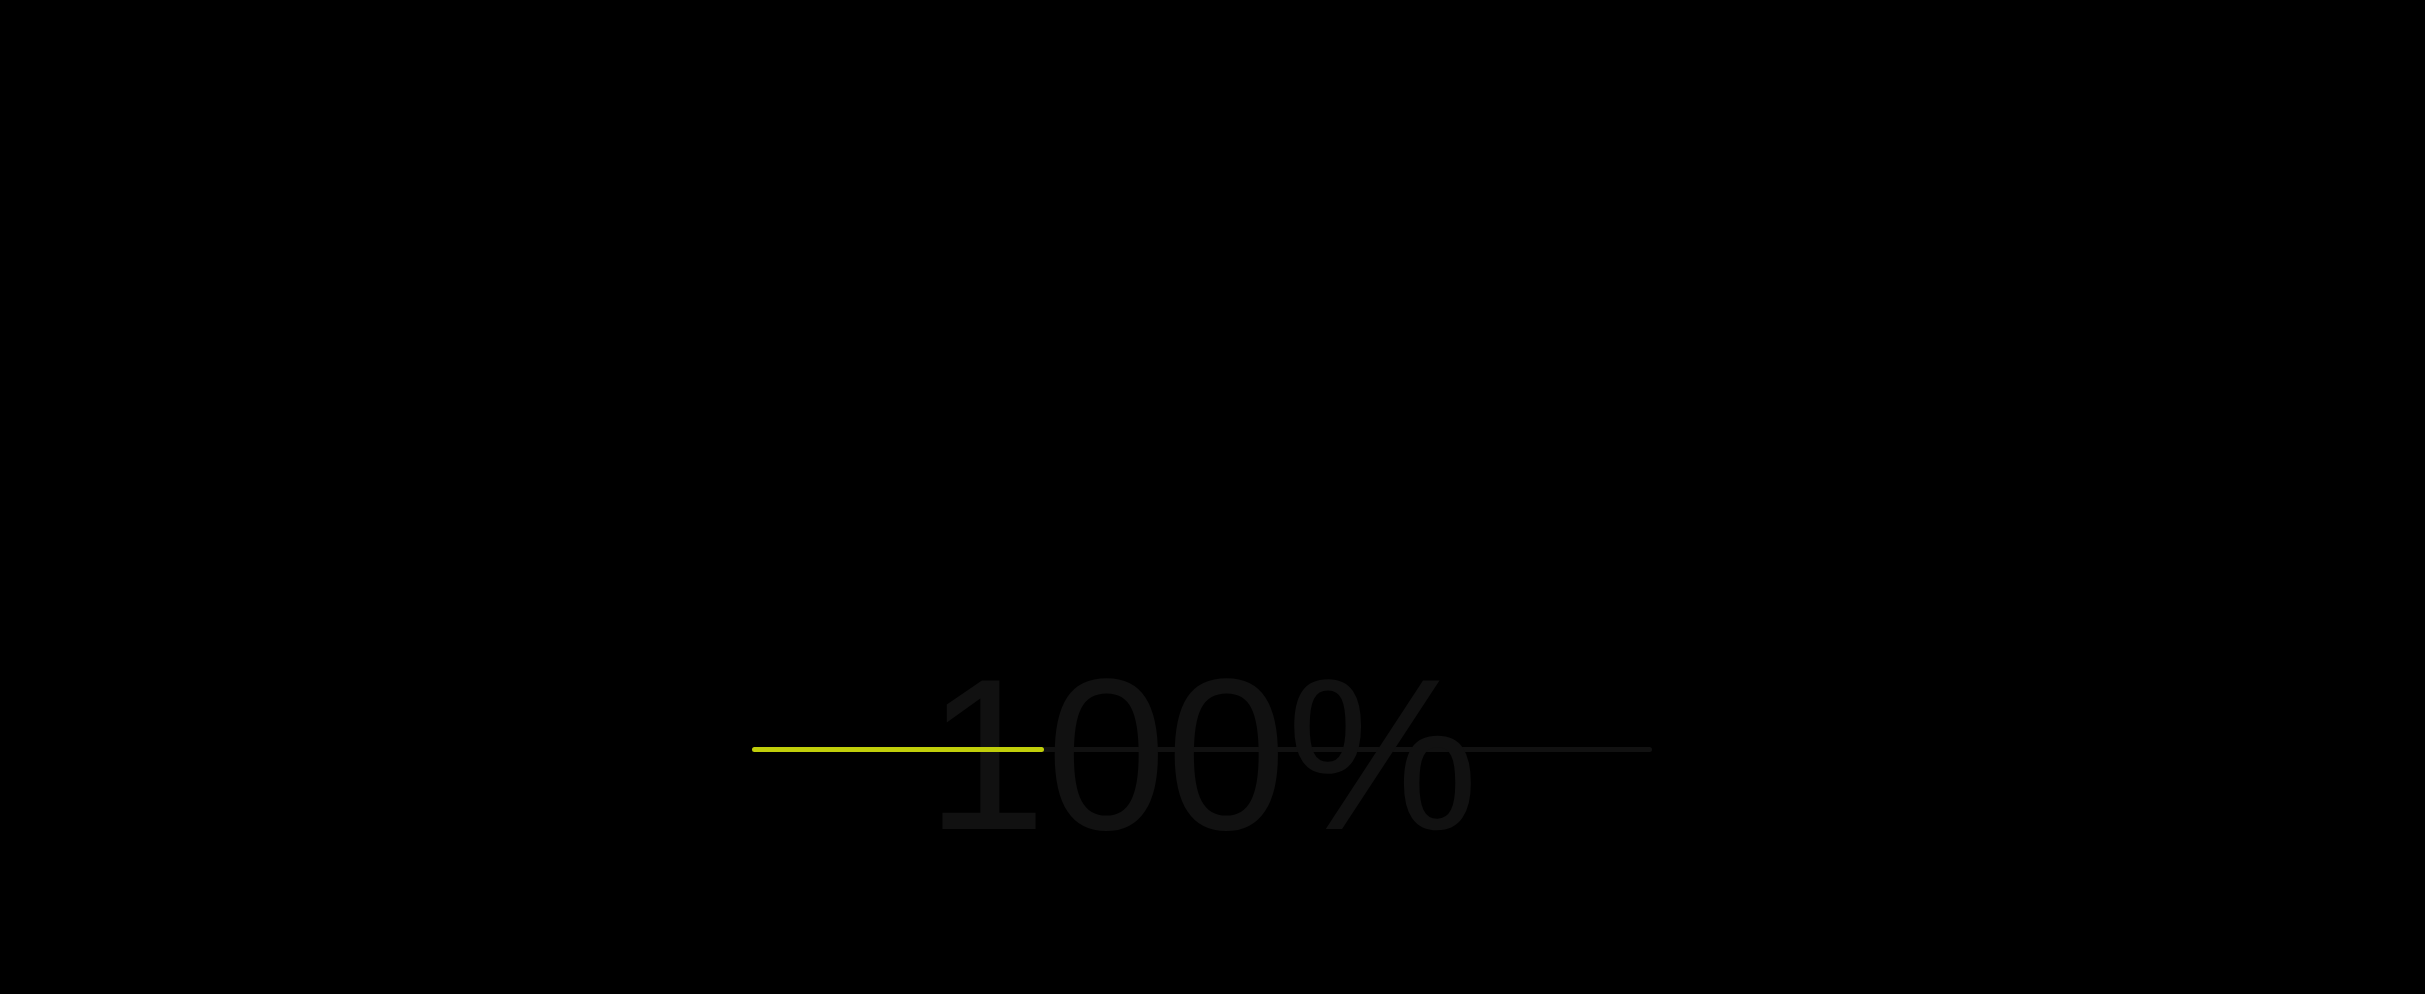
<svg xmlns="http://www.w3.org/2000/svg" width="2425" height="994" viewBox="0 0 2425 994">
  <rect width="100%" height="100%" fill="#000000"/>
  <rect x="752" y="747" width="900" height="5" rx="2.5" fill="#111111"/>
  <text x="926" y="829" font-family="Liberation Sans" font-size="216" fill="#111111">100%</text>
  <rect x="752" y="747" width="292" height="5" rx="2.5" fill="#c0ce0a"/>
</svg>
